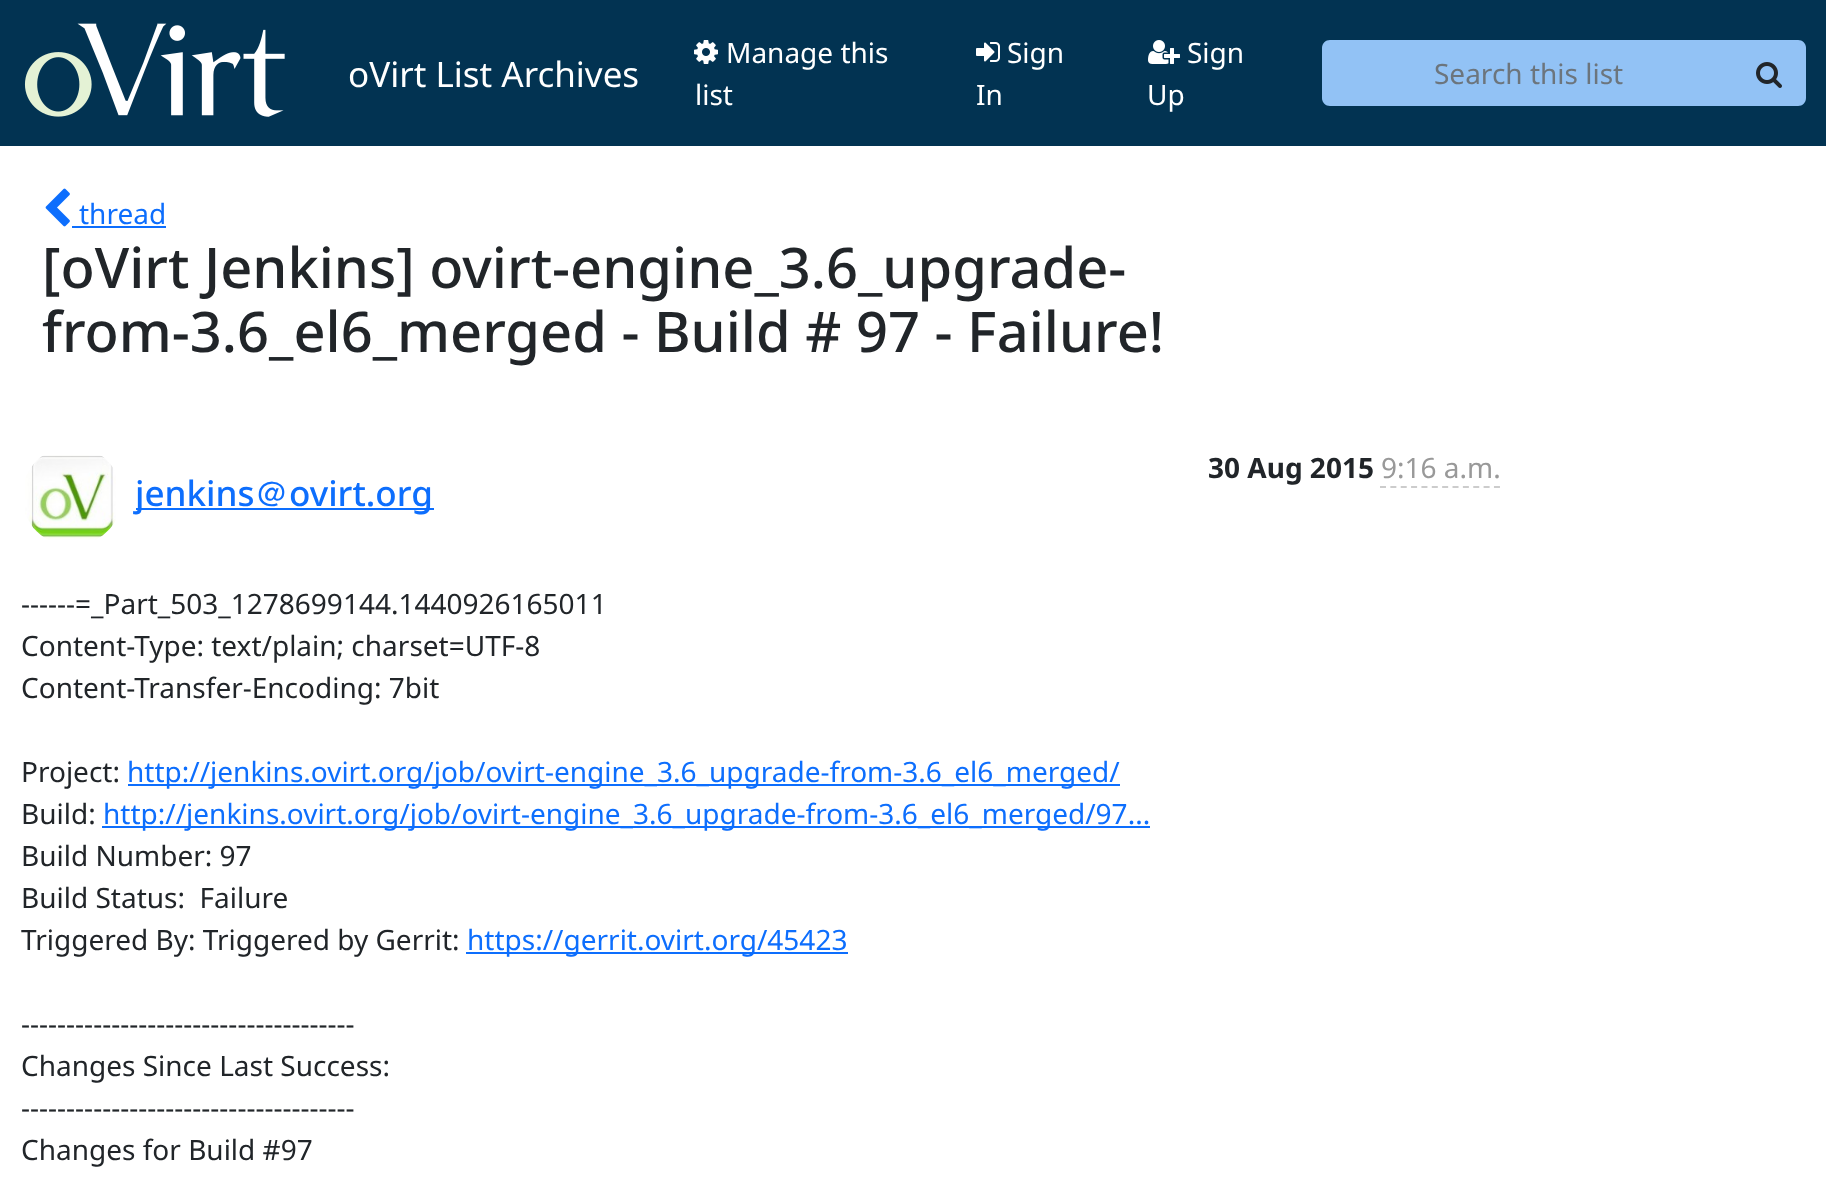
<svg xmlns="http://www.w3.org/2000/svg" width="1826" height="1177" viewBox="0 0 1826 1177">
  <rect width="100%" height="100%" fill="#ffffff"/>
  <rect x="0" y="0" width="1826" height="146" fill="#023352"/>
  <image x="24" y="23" width="261" height="94" href="img1.png"/>
  <text x="348" y="87" font-family="Noto Sans" font-size="35" fill="#ffffff">oVirt List Archives</text>
  <image x="694" y="40" width="24" height="24" href="img2.png"/>
  <text x="726" y="63" font-family="Noto Sans" font-size="28" fill="#ffffff">Manage this</text>
  <text x="695" y="105" font-family="Noto Sans" font-size="28" fill="#ffffff">list</text>
  <image x="976" y="42" width="24" height="20" href="img3.png"/>
  <text x="1007" y="63" font-family="Noto Sans" font-size="28" fill="#ffffff">Sign</text>
  <text x="976" y="105" font-family="Noto Sans" font-size="28" fill="#ffffff">In</text>
  <image x="1148" y="40" width="32" height="24" href="img4.png"/>
  <text x="1187" y="63" font-family="Noto Sans" font-size="28" fill="#ffffff">Sign</text>
  <text x="1147" y="105" font-family="Noto Sans" font-size="28" fill="#ffffff">Up</text>
  <path d="M1330 40H1736V106H1330C1325.5 106 1322 102.5 1322 98V48C1322 43.5 1325.5 40 1330 40Z" fill="#92c2f5"/>
  <text x="1434" y="84" font-family="Noto Sans" font-size="28" fill="#6c757d">Search this list</text>
  <path d="M1734 40H1798C1802.5 40 1806 43.5 1806 48V98C1806 102.5 1802.5 106 1798 106H1734Z" fill="#92c2f5"/>
  <image x="1756" y="62" width="26" height="26" href="img5.png"/>
  <image x="45" y="188" width="25" height="39" href="img6.png"/>
  <text x="79" y="224" font-family="Noto Sans" font-size="28" fill="#0d6efd">thread</text>
  <rect x="72" y="226" width="94" height="2" fill="#0d6efd"/>
  <text x="42" y="288" font-family="Noto Sans" font-size="56" font-weight="500" fill="#212529">[oVirt Jenkins] ovirt-engine_3.6_upgrade-</text>
  <text x="42" y="352" font-family="Noto Sans" font-size="56" font-weight="500" fill="#212529">from-3.6_el6_merged - Build # 97 - Failure!</text>
  <text x="1208" y="478" font-family="Noto Sans" font-size="28" font-weight="bold" fill="#212529">30 Aug 2015</text>
  <text x="1381" y="478" font-family="Noto Sans" font-size="28" fill="#999999">9:16 a.m.</text>
  <path d="M1380 487H1500" fill="none" stroke="#cccccc" stroke-width="2" stroke-dasharray="6 4.36"/>
  <image x="25" y="455" width="91" height="85" href="img7.png"/>
  <rect x="136" y="508" width="298" height="2" fill="#0d6efd"/>
  <text x="135" y="506" font-family="Noto Sans" font-size="35" font-weight="500" fill="#0d6efd">jenkins</text>
  <text x="254" y="506" font-family="WenQuanYi Zen Hei" font-size="35" font-weight="500" fill="#0d6efd">＠</text>
  <text x="289" y="506" font-family="Noto Sans" font-size="35" font-weight="500" fill="#0d6efd">ovirt.org</text>
  <text x="21" y="614" font-family="Noto Sans" font-size="28" fill="#212529">------=_Part_503_1278699144.1440926165011</text>
  <text x="21" y="656" font-family="Noto Sans" font-size="28" fill="#212529">Content-Type: text/plain; charset=UTF-8</text>
  <text x="21" y="698" font-family="Noto Sans" font-size="28" fill="#212529">Content-Transfer-Encoding: 7bit</text>
  <text x="21" y="782" font-family="Noto Sans" font-size="28" fill="#212529">Project:</text>
  <rect x="128" y="784" width="992" height="2" fill="#0d6efd"/>
  <text x="127" y="782" font-family="Noto Sans" font-size="28" fill="#0d6efd">http://jenkins.ovirt.org/job/ovirt-engine_3.6_upgrade-from-3.6_el6_merged/</text>
  <text x="21" y="824" font-family="Noto Sans" font-size="28" fill="#212529">Build:</text>
  <rect x="102" y="826" width="1048" height="2" fill="#0d6efd"/>
  <text x="103" y="824" font-family="Noto Sans" font-size="28" fill="#0d6efd">http://jenkins.ovirt.org/job/ovirt-engine_3.6_upgrade-from-3.6_el6_merged/97...</text>
  <text x="21" y="866" font-family="Noto Sans" font-size="28" fill="#212529">Build Number: 97</text>
  <text x="21" y="908" font-family="Noto Sans" font-size="28" fill="#212529" xml:space="preserve">Build Status:  Failure</text>
  <text x="21" y="950" font-family="Noto Sans" font-size="28" fill="#212529">Triggered By: Triggered by Gerrit:</text>
  <rect x="466" y="952" width="382" height="2" fill="#0d6efd"/>
  <text x="467" y="950" font-family="Noto Sans" font-size="28" fill="#0d6efd">https://gerrit.ovirt.org/45423</text>
  <text x="21" y="1034" font-family="Noto Sans" font-size="28" fill="#212529">-------------------------------------</text>
  <text x="21" y="1076" font-family="Noto Sans" font-size="28" fill="#212529">Changes Since Last Success:</text>
  <text x="21" y="1118" font-family="Noto Sans" font-size="28" fill="#212529">-------------------------------------</text>
  <text x="21" y="1160" font-family="Noto Sans" font-size="28" fill="#212529">Changes for Build #97</text>
</svg>
